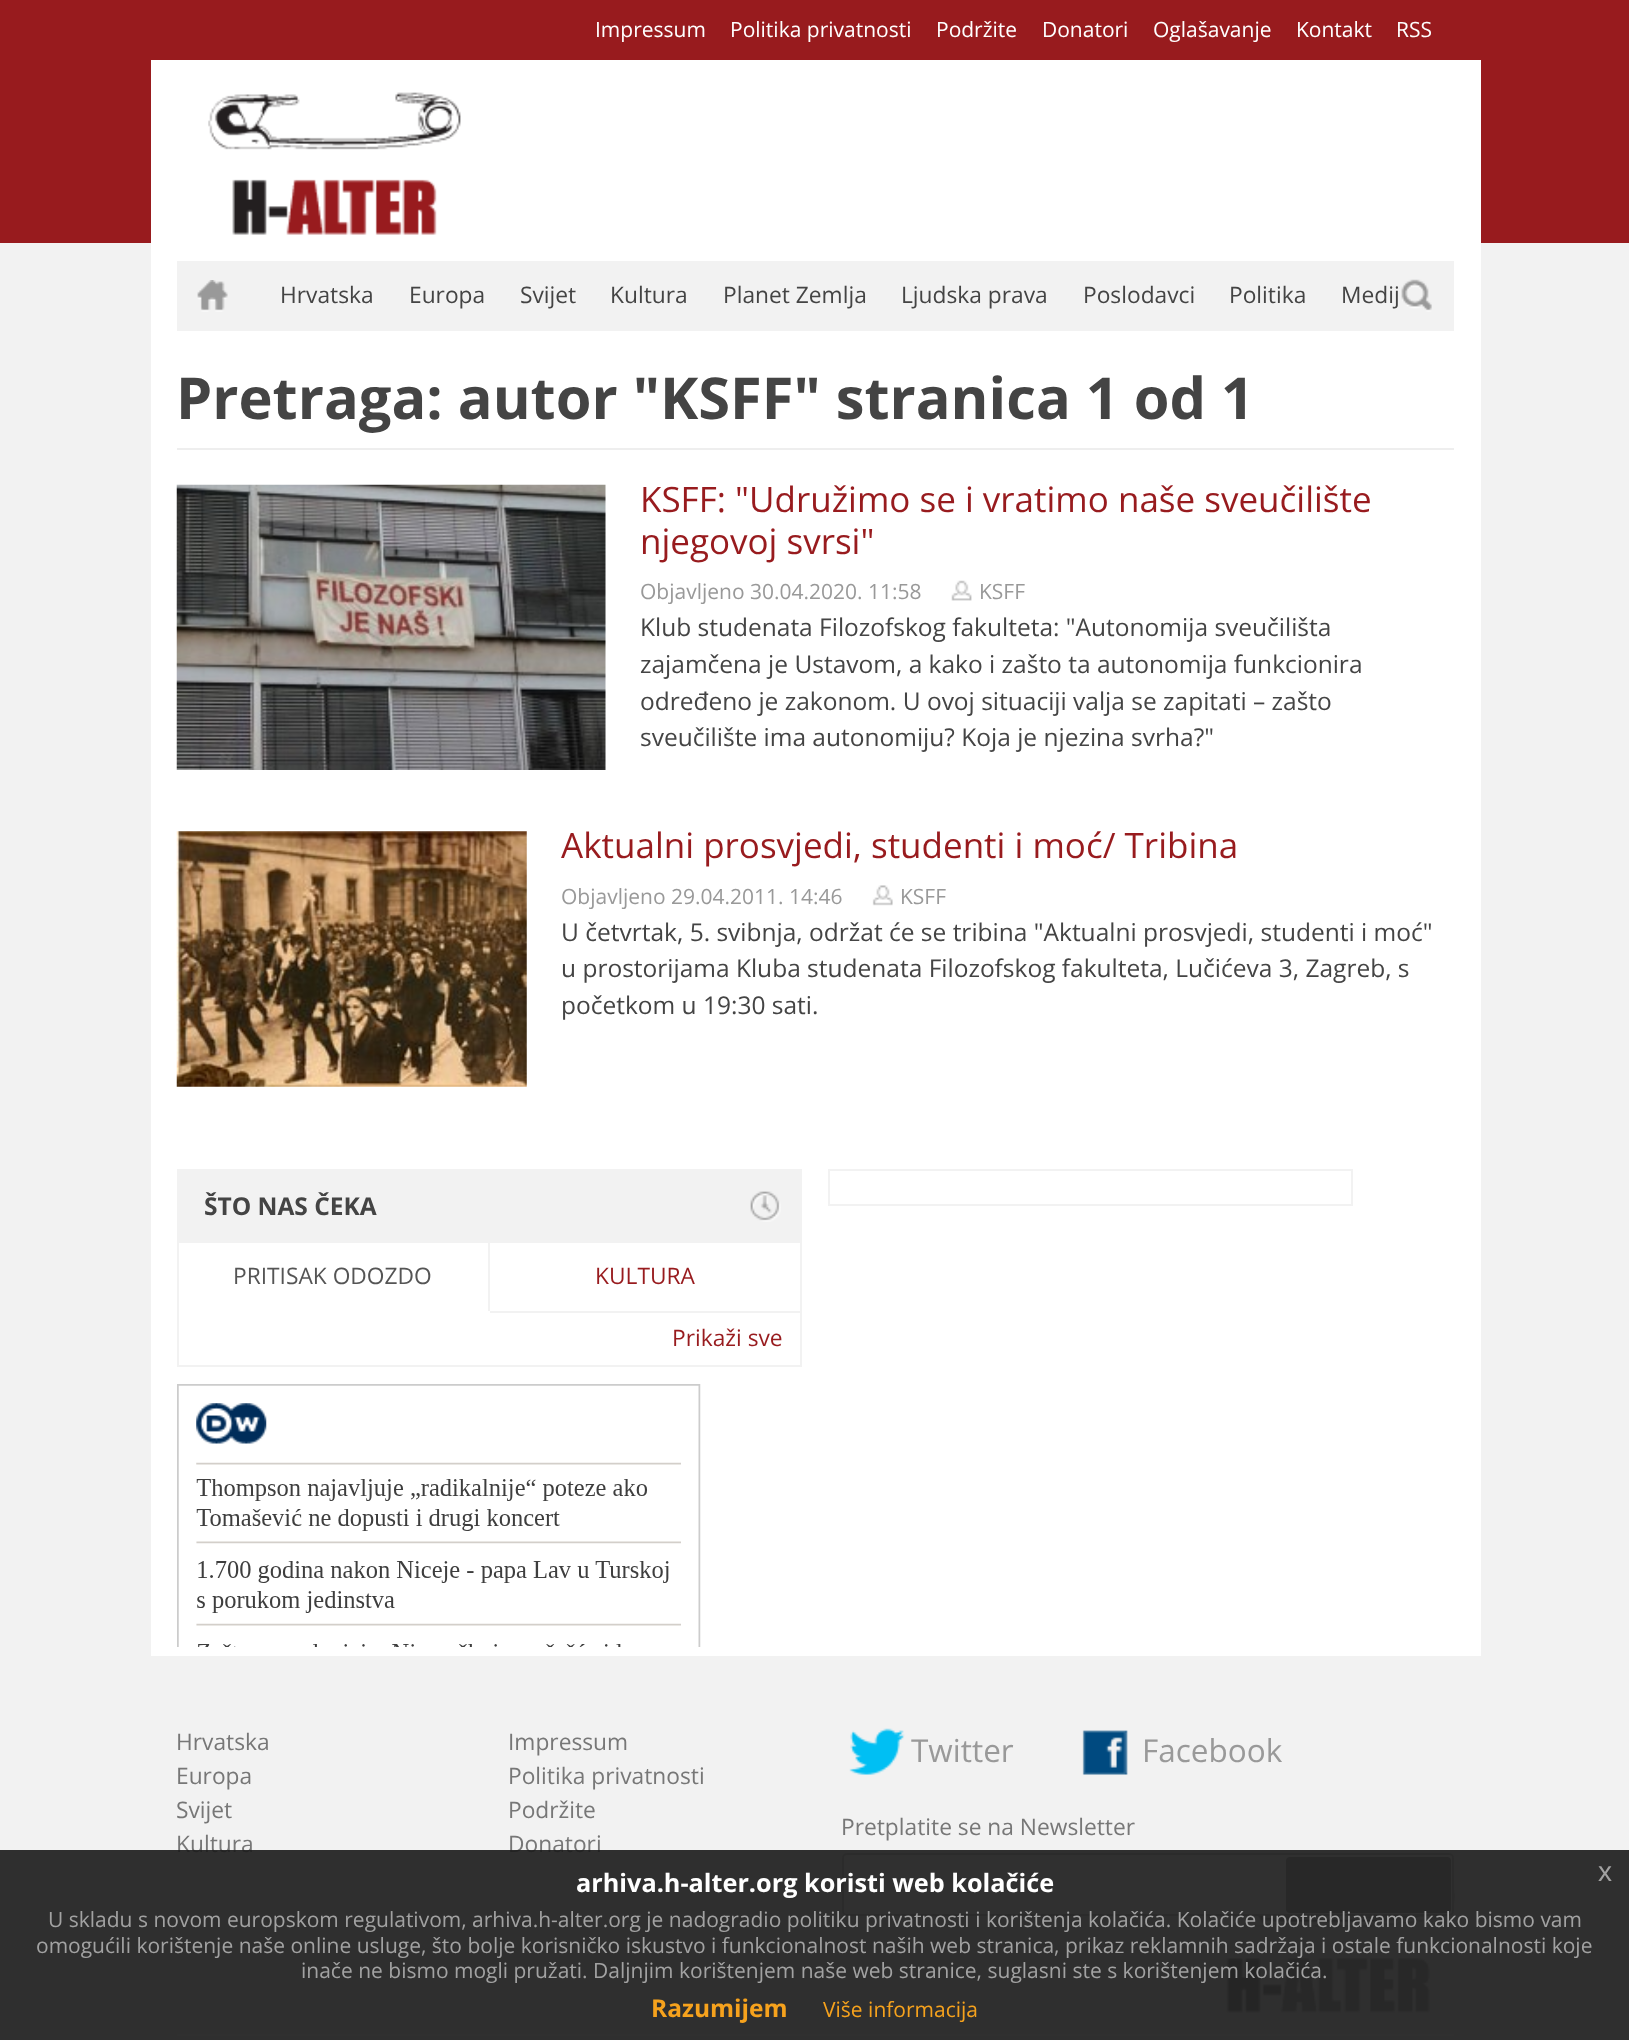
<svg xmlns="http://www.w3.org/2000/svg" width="1629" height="2040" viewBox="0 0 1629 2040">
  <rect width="100%" height="100%" fill="#f2f2f2"/>
  <rect x="0" y="0" width="1629" height="243" fill="#981b1e"/>
  <text x="595" y="37" font-family="Open Sans" font-size="21" fill="#ffffff">Impressum</text>
  <text x="730" y="37" font-family="Open Sans" font-size="21" fill="#ffffff">Politika privatnosti</text>
  <text x="936" y="37" font-family="Open Sans" font-size="21" fill="#ffffff">Podržite</text>
  <text x="1042" y="37" font-family="Open Sans" font-size="21" fill="#ffffff">Donatori</text>
  <text x="1153" y="37" font-family="Open Sans" font-size="21" fill="#ffffff">Oglašavanje</text>
  <text x="1296" y="37" font-family="Open Sans" font-size="21" fill="#ffffff">Kontakt</text>
  <text x="1396" y="37" font-family="Open Sans" font-size="21" fill="#ffffff">RSS</text>
  <rect x="151" y="60" width="1330" height="1596" fill="#ffffff"/>
  <image x="208" y="92" width="253" height="143" href="img1.png"/>
  <rect x="177" y="261" width="1277" height="70" fill="#f2f2f2"/>
  <image x="197" y="280" width="31" height="32" href="img2.png"/>
  <text x="280" y="303" font-family="Open Sans" font-size="22.75" fill="#444444">Hrvatska</text>
  <text x="409" y="303" font-family="Open Sans" font-size="22.75" fill="#444444">Europa</text>
  <text x="520" y="303" font-family="Open Sans" font-size="22.75" fill="#444444">Svijet</text>
  <text x="610" y="303" font-family="Open Sans" font-size="22.75" fill="#444444">Kultura</text>
  <text x="723" y="303" font-family="Open Sans" font-size="22.75" fill="#444444">Planet Zemlja</text>
  <text x="901" y="303" font-family="Open Sans" font-size="22.75" fill="#444444">Ljudska prava</text>
  <text x="1083" y="303" font-family="Open Sans" font-size="22.75" fill="#444444">Poslodavci</text>
  <text x="1229" y="303" font-family="Open Sans" font-size="22.75" fill="#444444">Politika</text>
  <text x="1341" y="303" font-family="Open Sans" font-size="22.75" fill="#444444">Medij</text>
  <image x="1401" y="279" width="31" height="33" href="img3.png"/>
  <rect x="177" y="448" width="1277" height="2" fill="#eeeeee"/>
  <text x="176" y="419" font-family="Open Sans" font-size="57.75" font-weight="bold" fill="#444444">Pretraga: autor "KSFF" stranica 1 od 1</text>
  <image x="176" y="484" width="430" height="286" href="img4.png"/>
  <text x="640" y="512" font-family="Open Sans" font-size="35" fill="#981b1e">KSFF: "Udružimo se i vratimo naše sveučilište</text>
  <text x="640" y="554" font-family="Open Sans" font-size="35" fill="#981b1e">njegovoj svrsi"</text>
  <text x="640" y="599" font-family="Open Sans" font-size="21" fill="#999999">Objavljeno 30.04.2020. 11:58</text>
  <image x="951" y="580" width="21" height="21" href="img5.png"/>
  <text x="979" y="599" font-family="Open Sans" font-size="21" fill="#999999">KSFF</text>
  <text x="640" y="636" font-family="Open Sans" font-size="24.5" fill="#444444">Klub studenata Filozofskog fakulteta: "Autonomija sveučilišta</text>
  <text x="640" y="673" font-family="Open Sans" font-size="24.5" fill="#444444">zajamčena je Ustavom, a kako i zašto ta autonomija funkcionira</text>
  <text x="640" y="710" font-family="Open Sans" font-size="24.5" fill="#444444">određeno je zakonom. U ovoj situaciji valja se zapitati – zašto</text>
  <text x="640" y="746" font-family="Open Sans" font-size="24.5" fill="#444444">sveučilište ima autonomiju? Koja je njezina svrha?"</text>
  <image x="176" y="831" width="351" height="256" href="img6.png"/>
  <text x="561" y="858" font-family="Open Sans" font-size="35" fill="#981b1e">Aktualni prosvjedi, studenti i moć/ Tribina</text>
  <text x="561" y="904" font-family="Open Sans" font-size="21" fill="#999999">Objavljeno 29.04.2011. 14:46</text>
  <image x="872" y="885" width="21" height="21" href="img7.png"/>
  <text x="900" y="904" font-family="Open Sans" font-size="21" fill="#999999">KSFF</text>
  <text x="561" y="941" font-family="Open Sans" font-size="24.5" fill="#444444">U četvrtak, 5. svibnja, održat će se tribina "Aktualni prosvjedi, studenti i moć"</text>
  <text x="561" y="977" font-family="Open Sans" font-size="24.5" fill="#444444">u prostorijama Kluba studenata Filozofskog fakulteta, Lučićeva 3, Zagreb, s</text>
  <text x="561" y="1014" font-family="Open Sans" font-size="24.5" fill="#444444">početkom u 19:30 sati.</text>
  <rect x="829" y="1170" width="523" height="35" fill="none" stroke="#f2f2f2" stroke-width="2"/>
  <rect x="178" y="1170" width="623" height="196" fill="none" stroke="#f2f2f2" stroke-width="2"/>
  <rect x="179" y="1171" width="621" height="72" fill="#f2f2f2"/>
  <image x="750" y="1191" width="31" height="31" href="img8.png"/>
  <text x="204" y="1215" font-family="Open Sans" font-size="24.5" font-weight="bold" fill="#444444">ŠTO NAS ČEKA</text>
  <rect x="488" y="1243" width="2" height="70" fill="#f2f2f2"/>
  <rect x="488" y="1311" width="2" height="2" fill="#ffffff"/>
  <text x="233" y="1284" font-family="Open Sans" font-size="22.75" fill="#555555">PRITISAK ODOZDO</text>
  <rect x="490" y="1311" width="310" height="2" fill="#f2f2f2"/>
  <text x="595" y="1284" font-family="Open Sans" font-size="22.75" fill="#981b1e">KULTURA</text>
  <text x="672" y="1346" font-family="Open Sans" font-size="22.75" fill="#981b1e">Prikaži sve</text>
  <image x="177" y="1384" width="524" height="263" href="img9.png"/>
  <image x="1205" y="1889" width="250" height="124" href="img10.png"/>
  <text x="176" y="1750" font-family="Open Sans" font-size="22.75" fill="#777777">Hrvatska</text>
  <text x="176" y="1784" font-family="Open Sans" font-size="22.75" fill="#777777">Europa</text>
  <text x="176" y="1818" font-family="Open Sans" font-size="22.75" fill="#777777">Svijet</text>
  <text x="176" y="1852" font-family="Open Sans" font-size="22.75" fill="#777777">Kultura</text>
  <text x="508" y="1750" font-family="Open Sans" font-size="22.75" fill="#777777">Impressum</text>
  <text x="508" y="1784" font-family="Open Sans" font-size="22.75" fill="#777777">Politika privatnosti</text>
  <text x="508" y="1818" font-family="Open Sans" font-size="22.75" fill="#777777">Podržite</text>
  <text x="508" y="1852" font-family="Open Sans" font-size="22.75" fill="#777777">Donatori</text>
  <image x="849" y="1728" width="56" height="47" href="img11.png"/>
  <text x="911" y="1762" font-family="Open Sans" font-size="31.5" fill="#999999">Twitter</text>
  <image x="1082" y="1730" width="46" height="45" href="img12.png"/>
  <text x="1142" y="1762" font-family="Open Sans" font-size="31.5" fill="#999999">Facebook</text>
  <text x="841" y="1835" font-family="Open Sans" font-size="22.75" fill="#777777">Pretplatite se na Newsletter</text>
  <rect x="843" y="1854" width="610" height="61" rx="4" fill="#ffffff" stroke="#cccccc" stroke-width="2"/>
  <rect x="1286" y="1857" width="165" height="56" rx="4" fill="#aaaaaa"/>
  <rect x="177" y="2034" width="1277" height="2" fill="#ffffff"/>
  <rect x="0" y="1850" width="1629" height="190" fill="#191919" fill-opacity="0.9"/>
  <text x="576" y="1892" font-family="Open Sans" font-size="25.25" font-weight="bold" fill="#ffffff">arhiva.h-alter.org koristi web kolačiće</text>
  <text x="1598" y="1881" font-family="Liberation Sans" font-size="28" fill="#a2a2a2">x</text>
  <text x="48" y="1927" font-family="Open Sans" font-size="21" fill="#a2a2a2">U skladu s novom europskom regulativom, arhiva.h-alter.org je nadogradio politiku privatnosti i korištenja kolačića. Kolačiće upotrebljavamo kako bismo vam</text>
  <text x="36" y="1953" font-family="Open Sans" font-size="21" fill="#a2a2a2">omogućili korištenje naše online usluge, što bolje korisničko iskustvo i funkcionalnost naših web stranica, prikaz reklamnih sadržaja i ostale funkcionalnosti koje</text>
  <text x="301" y="1978" font-family="Open Sans" font-size="21" fill="#a2a2a2">inače ne bismo mogli pružati. Daljnjim korištenjem naše web stranice, suglasni ste s korištenjem kolačića.</text>
  <text x="651" y="2017" font-family="Open Sans" font-size="24.5" font-weight="bold" fill="#f6a21d">Razumijem</text>
  <text x="823" y="2017" font-family="Open Sans" font-size="21" fill="#f6a21d">Više informacija</text>
</svg>
